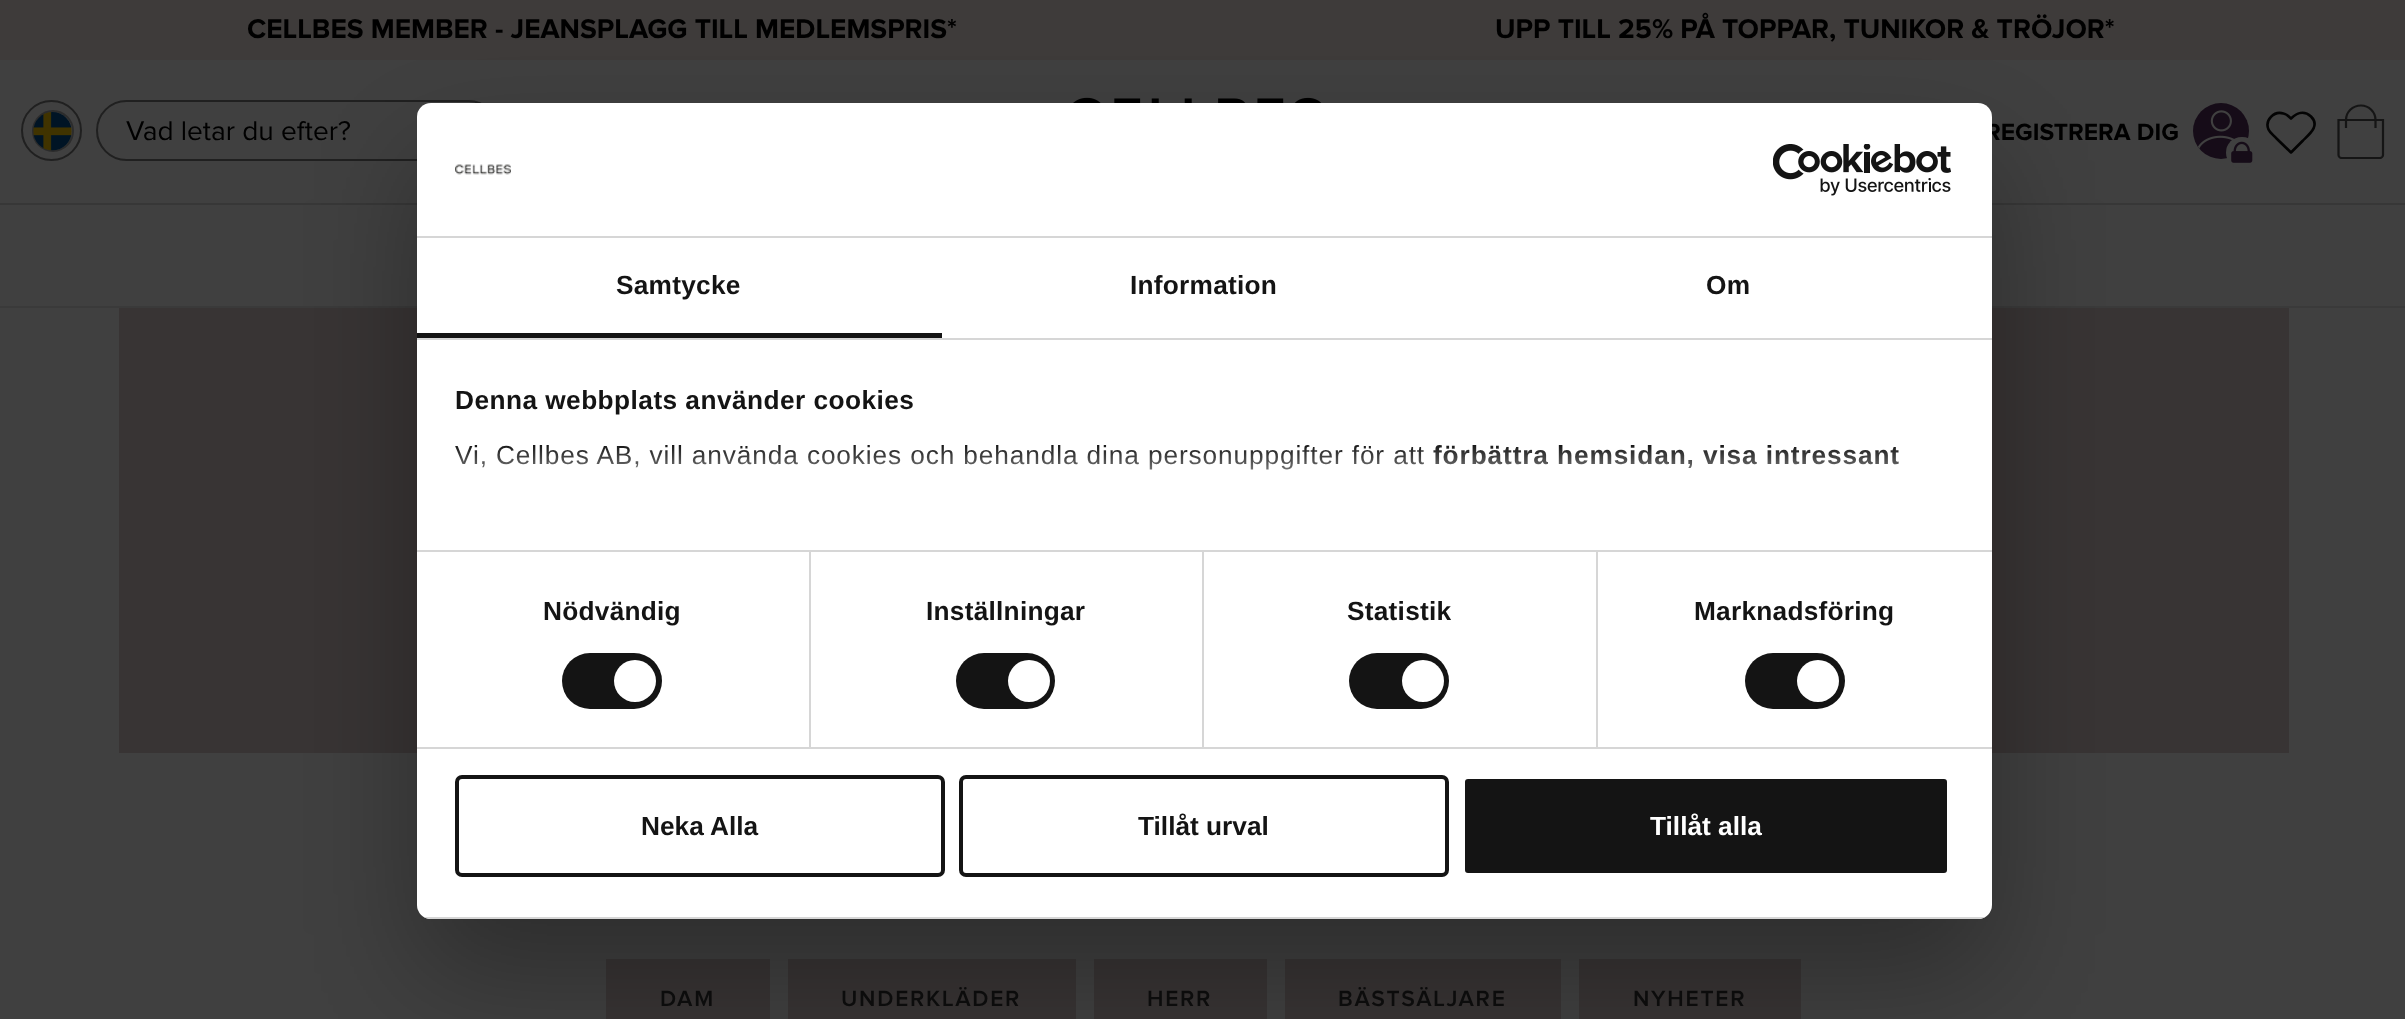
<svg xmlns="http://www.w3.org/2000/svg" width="2405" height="1019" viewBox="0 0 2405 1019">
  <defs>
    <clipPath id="clip1"><rect x="2333" y="103" width="56" height="56"/></clipPath>
    <filter id="blur1" x="-50%" y="-200%" width="200%" height="500%"><feGaussianBlur stdDeviation="59.5"/></filter>
    <linearGradient id="g1" gradientUnits="userSpaceOnUse" x1="1186" y1="549" x2="1186" y2="444"><stop offset="0" stop-color="#ffffff"/><stop offset="0.5" stop-color="#ffffff" stop-opacity="0.8"/><stop offset="1" stop-color="#ffffff" stop-opacity="0"/></linearGradient>
    <clipPath id="clip2"><rect x="417" y="103" width="1575" height="816" rx="14"/></clipPath>
  </defs>
  <rect width="100%" height="100%" fill="#404040"/>
  <rect x="0" y="0" width="2405" height="60" fill="#3e3b3a"/>
  <text x="247" y="38" font-family="Proxima Nova" font-size="28" font-weight="bold" fill="#000000">CELLBES MEMBER - JEANSPLAGG TILL MEDLEMSPRIS*</text>
  <text x="1495" y="38" font-family="Proxima Nova" font-size="28" font-weight="bold" fill="#000000">UPP TILL 25% PÅ TOPPAR, TUNIKOR &amp; TRÖJOR*</text>
  <image x="1073" y="97" width="248" height="6" href="img1.png"/>
  <circle cx="51.5" cy="130.5" r="29.5" fill="none" stroke="#202020" stroke-width="2"/>
  <circle cx="53" cy="131" r="20" fill="none" stroke="#2c2c2c" stroke-width="2"/>
  <image x="33" y="112" width="39" height="39" href="img2.png"/>
  <rect x="97" y="101" width="401" height="59" rx="29.5" fill="none" stroke="#202020" stroke-width="2"/>
  <text x="126" y="140" font-family="Proxima Nova" font-size="28" fill="#000000">Vad letar du efter?</text>
  <text x="1985" y="140" font-family="Proxima Nova" font-size="24.5" font-weight="bold" fill="#000000">REGISTRERA DIG</text>
  <circle cx="2221" cy="131" r="28" fill="#160c18"/>
  <image x="2198" y="110" width="37" height="39" href="img3.png"/>
  <rect x="2226" y="137" width="32" height="31" rx="15.5" fill="#404040"/>
  <image x="2230" y="140" width="23" height="23" href="img4.png"/>
  <path d="M2311 116.5C2304 110 2296.5 113 2291 118.5C2289 116.5 2286.5 114 2283.5 113.5C2274 110.5 2264.5 120 2268.5 129.5C2270 133 2274 135.5 2276.5 138.5L2291 152.5L2302.5 141C2309 134.5 2320.5 126 2311 116.5Z" fill="none" stroke="#030303" stroke-width="2.6" stroke-linecap="round" stroke-linejoin="round"/>
  <g clip-path="url(#clip1)">
    <path d="M2338.5 120H2383V155C2383 156.5 2381.5 158 2380 158H2341.5C2340 158 2338.5 156.5 2338.5 155Z" fill="none" stroke="#151515" stroke-width="2.2"/>
  </g>
  <path d="M2346 128V120C2346 112 2352.5 105.5 2361 105.5C2369 105.5 2375.5 112 2375.5 120V128" fill="none" stroke="#151515" stroke-width="2.2"/>
  <rect x="0" y="203" width="2405" height="2" fill="#373737"/>
  <rect x="0" y="306" width="2405" height="2" fill="#3a3a3a"/>
  <rect x="119" y="308" width="2170" height="445" fill="#383434"/>
  <rect x="606" y="959" width="164" height="60" fill="#383434"/>
  <text x="660" y="1006" font-family="Proxima Nova" font-size="22.75" font-weight="600" letter-spacing="1.75" fill="#0d0d0d">DAM</text>
  <rect x="788" y="959" width="288" height="60" fill="#383434"/>
  <text x="841" y="1006" font-family="Proxima Nova" font-size="22.75" font-weight="600" letter-spacing="1.75" fill="#0d0d0d">UNDERKLÄDER</text>
  <rect x="1094" y="959" width="173" height="60" fill="#383434"/>
  <text x="1147" y="1006" font-family="Proxima Nova" font-size="22.75" font-weight="600" letter-spacing="1.75" fill="#0d0d0d">HERR</text>
  <rect x="1285" y="959" width="276" height="60" fill="#383434"/>
  <text x="1338" y="1006" font-family="Proxima Nova" font-size="22.75" font-weight="600" letter-spacing="1.75" fill="#0d0d0d">BÄSTSÄLJARE</text>
  <rect x="1579" y="959" width="222" height="60" fill="#383434"/>
  <text x="1633" y="1006" font-family="Proxima Nova" font-size="22.75" font-weight="600" letter-spacing="1.75" fill="#0d0d0d">NYHETER</text>
  <rect x="417" y="159" width="1575" height="816" rx="14" fill="#000000" fill-opacity="0.3" filter="url(#blur1)"/>
  <rect x="417" y="103" width="1575" height="816" rx="14" fill="#ffffff"/>
  <rect x="417" y="236" width="1575" height="2" fill="#d6d6d6"/>
  <image x="455" y="164" width="56" height="11" href="img5.png"/>
  <image x="1773" y="144" width="178" height="52" href="img6.png"/>
  <rect x="417" y="338" width="1575" height="2" fill="#d6d6d6"/>
  <rect x="417" y="333" width="525" height="5" fill="#141414"/>
  <text x="616" y="294" font-family="Liberation Sans" font-size="26.25" font-weight="bold" letter-spacing="0.25" fill="#141414">Samtycke</text>
  <text x="1130" y="294" font-family="Liberation Sans" font-size="26.25" font-weight="bold" letter-spacing="0.25" fill="#141414">Information</text>
  <text x="1706" y="294" font-family="Liberation Sans" font-size="26.25" font-weight="bold" letter-spacing="0.25" fill="#141414">Om</text>
  <rect x="809" y="551" width="2" height="196" fill="#d6d6d6"/>
  <rect x="1202" y="551" width="2" height="196" fill="#d6d6d6"/>
  <rect x="1596" y="551" width="2" height="196" fill="#d6d6d6"/>
  <rect x="417" y="550" width="1575" height="2" fill="#d6d6d6"/>
  <text x="455" y="409" font-family="Liberation Sans" font-size="26.25" font-weight="bold" letter-spacing="0.45" fill="#141414">Denna webbplats använder cookies</text>
  <text x="455" y="464" font-family="Liberation Sans" font-size="26.25" letter-spacing="0.88" fill="#141414">Vi, Cellbes AB, vill använda cookies och behandla dina personuppgifter för att</text>
  <text x="1433" y="464" font-family="Liberation Sans" font-size="26.25" font-weight="bold" letter-spacing="0.88" fill="#141414">förbättra hemsidan, visa intressant</text>
  <rect x="455" y="445" width="1444" height="25" fill="url(#g1)"/>
  <rect x="417" y="747" width="1575" height="2" fill="#d6d6d6"/>
  <text x="543" y="620" font-family="Liberation Sans" font-size="26.25" font-weight="bold" letter-spacing="0.25" fill="#141414">Nödvändig</text>
  <rect x="562" y="653" width="100" height="56" rx="28" fill="#141414"/>
  <circle cx="635" cy="681" r="21" fill="#ffffff"/>
  <text x="926" y="620" font-family="Liberation Sans" font-size="26.25" font-weight="bold" letter-spacing="0.25" fill="#141414">Inställningar</text>
  <rect x="956" y="653" width="99" height="56" rx="28" fill="#141414"/>
  <circle cx="1029" cy="681" r="21" fill="#ffffff"/>
  <text x="1347" y="620" font-family="Liberation Sans" font-size="26.25" font-weight="bold" letter-spacing="0.25" fill="#141414">Statistik</text>
  <rect x="1349" y="653" width="100" height="56" rx="28" fill="#141414"/>
  <circle cx="1423" cy="681" r="21" fill="#ffffff"/>
  <text x="1694" y="620" font-family="Liberation Sans" font-size="26.25" font-weight="bold" letter-spacing="0.25" fill="#141414">Marknadsföring</text>
  <rect x="1745" y="653" width="100" height="56" rx="28" fill="#141414"/>
  <circle cx="1818" cy="681" r="21" fill="#ffffff"/>
  <g clip-path="url(#clip2)">
    <rect x="417" y="917" width="1575" height="2" fill="#d6d6d6"/>
  </g>
  <rect x="457" y="777" width="486" height="98" rx="5" fill="none" stroke="#141414" stroke-width="4"/>
  <text x="641" y="835" font-family="Liberation Sans" font-size="26.25" font-weight="bold" fill="#141414">Neka Alla</text>
  <rect x="961" y="777" width="486" height="98" rx="5" fill="none" stroke="#141414" stroke-width="4"/>
  <text x="1138" y="835" font-family="Liberation Sans" font-size="26.25" font-weight="bold" fill="#141414">Tillåt urval</text>
  <rect x="1463" y="777" width="486" height="98" rx="5" fill="#141414" stroke="#ffffff" stroke-width="4"/>
  <text x="1650" y="835" font-family="Liberation Sans" font-size="26.25" font-weight="bold" fill="#ffffff">Tillåt alla</text>
</svg>
